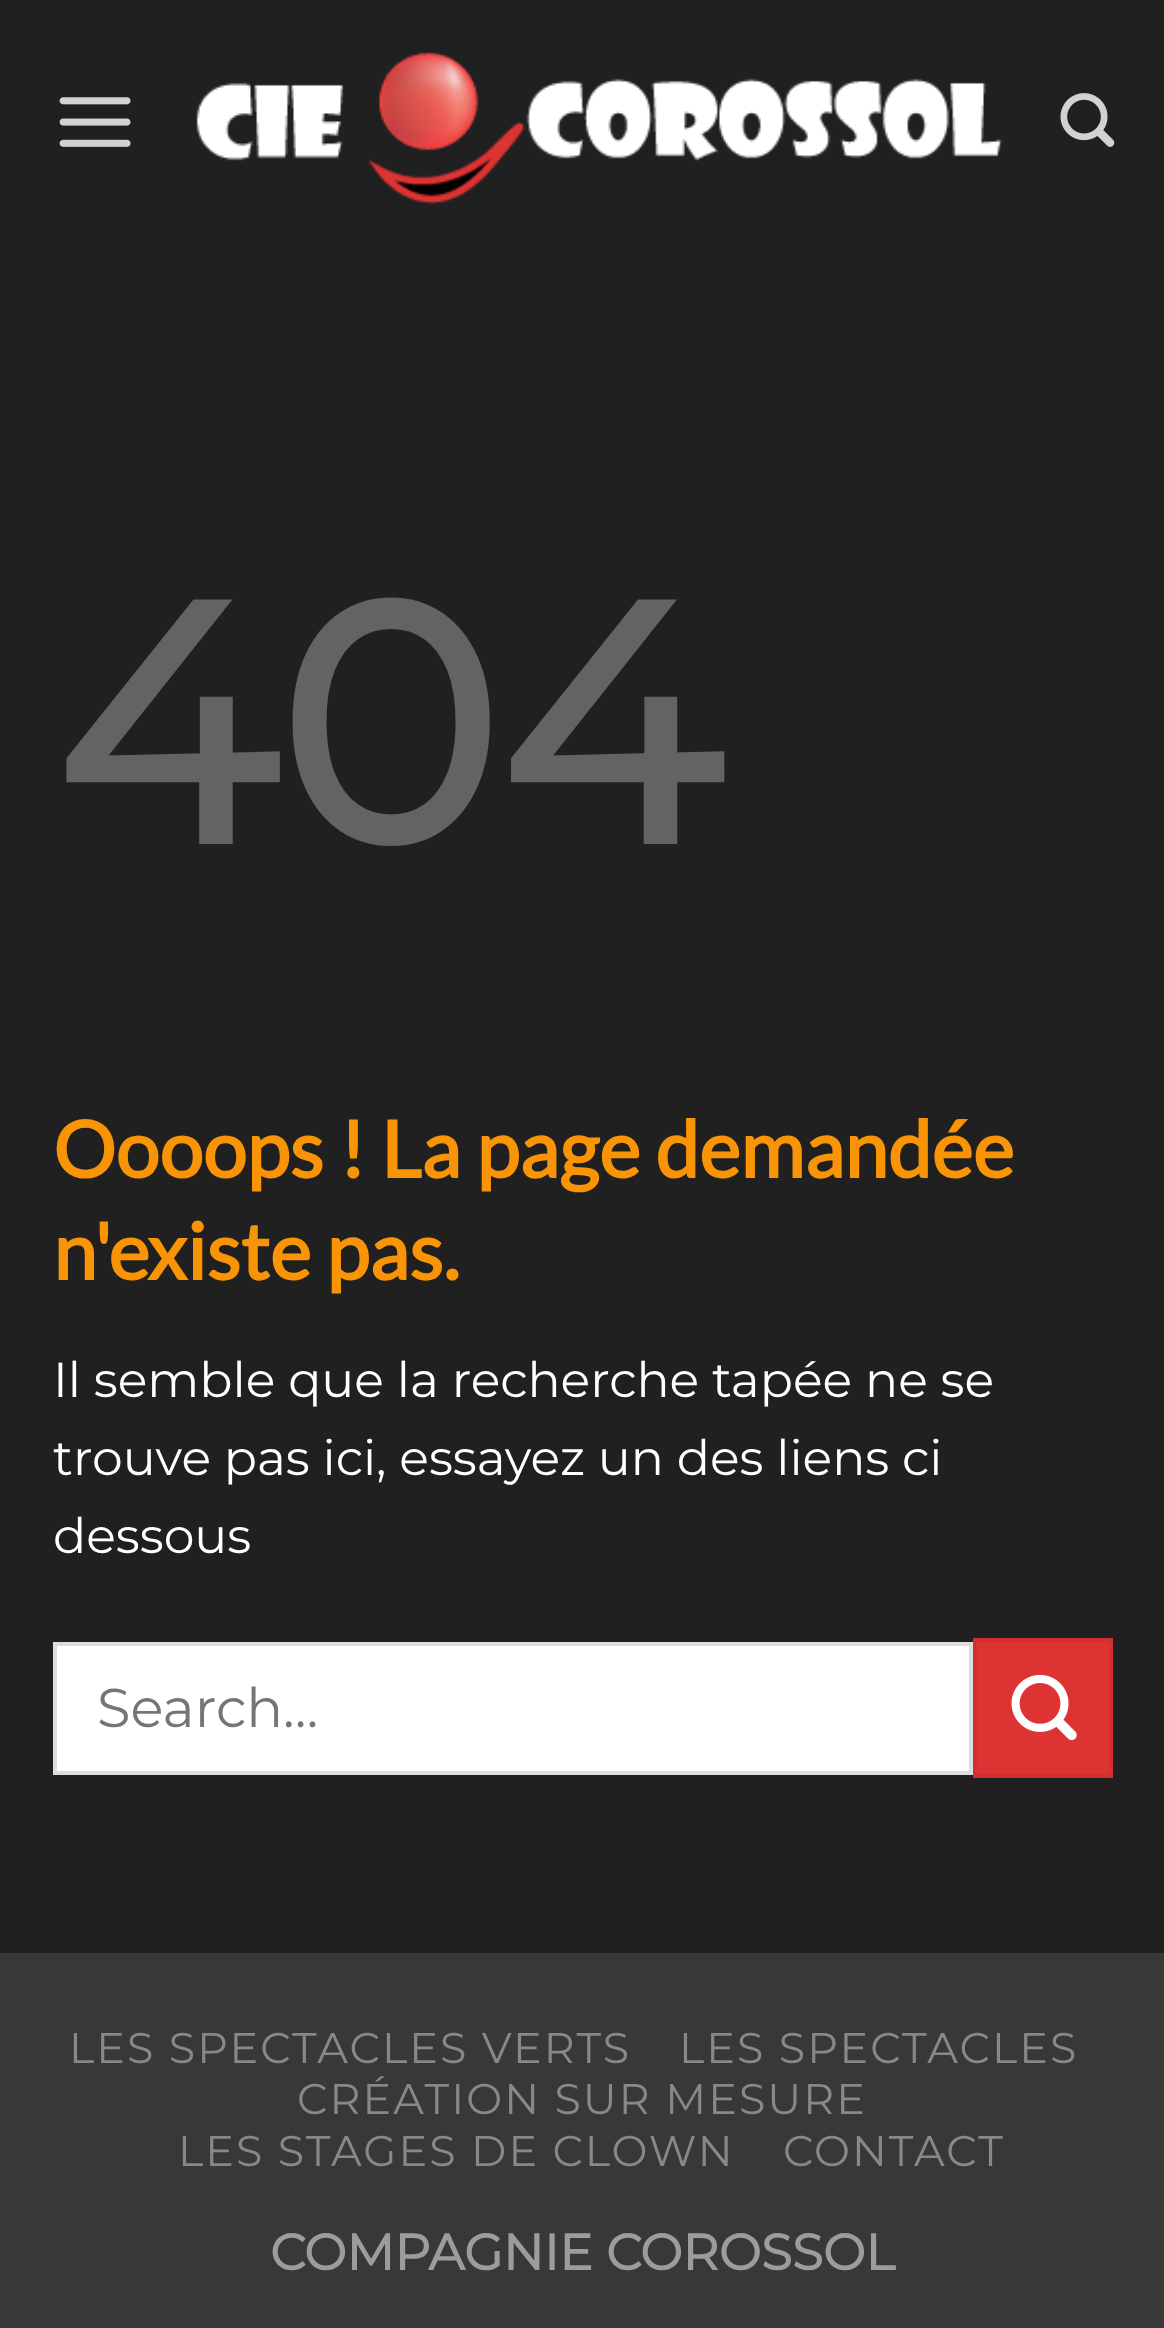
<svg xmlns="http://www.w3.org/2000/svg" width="1164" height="2328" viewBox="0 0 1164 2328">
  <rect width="100%" height="100%" fill="#202020"/>
  <image x="59" y="97" width="72" height="50" href="img1.png"/>
  <image x="196" y="52" width="807" height="153" href="img2.png"/>
  <image x="1060" y="93" width="55" height="54" href="img3.png"/>
  <text x="53" y="844" font-family="Montserrat" font-size="336" font-weight="bold" fill="#636363">404</text>
  <text x="53" y="1178" font-family="Lato" font-size="78.4" font-weight="bold" fill="#f89406">Oooops ! La page demandée</text>
  <text x="53" y="1280" font-family="Lato" font-size="78.4" font-weight="bold" fill="#f89406">n'existe pas.</text>
  <text x="53" y="1397" font-family="Montserrat" font-size="49" font-weight="100" fill="#ffffff">Il semble que la recherche tapée ne se</text>
  <text x="53" y="1475" font-family="Montserrat" font-size="49" font-weight="100" fill="#ffffff">trouve pas ici, essayez un des liens ci</text>
  <text x="53" y="1553" font-family="Montserrat" font-size="49" font-weight="100" fill="#ffffff">dessous</text>
  <rect x="55" y="1644" width="916" height="129" fill="#ffffff" stroke="#dddddd" stroke-width="4"/>
  <text x="97" y="1727" font-family="Montserrat" font-size="54.5" font-weight="100" fill="#757575">Search…</text>
  <rect x="975" y="1640" width="136" height="136" fill="#dd3333" stroke="#d23030" stroke-width="4"/>
  <image x="1011" y="1674" width="66" height="67" href="img4.png"/>
  <rect x="0" y="1953" width="1164" height="375" fill="#383838"/>
  <text x="69" y="2063" font-family="Montserrat" font-size="42.8" font-weight="100" letter-spacing="2.1" fill="#888888">LES SPECTACLES VERTS</text>
  <text x="679" y="2063" font-family="Montserrat" font-size="42.8" font-weight="100" letter-spacing="2.1" fill="#888888">LES SPECTACLES</text>
  <text x="297" y="2114" font-family="Montserrat" font-size="42.8" font-weight="100" letter-spacing="2.1" fill="#888888">CRÉATION SUR MESURE</text>
  <text x="178" y="2166" font-family="Montserrat" font-size="42.8" font-weight="100" letter-spacing="2.1" fill="#888888">LES STAGES DE CLOWN</text>
  <text x="783" y="2166" font-family="Montserrat" font-size="42.8" font-weight="100" letter-spacing="2.1" fill="#888888">CONTACT</text>
  <text x="270" y="2270" font-family="Montserrat" font-size="50.4" font-weight="bold" fill="#9c9c9c">COMPAGNIE COROSSOL</text>
</svg>
